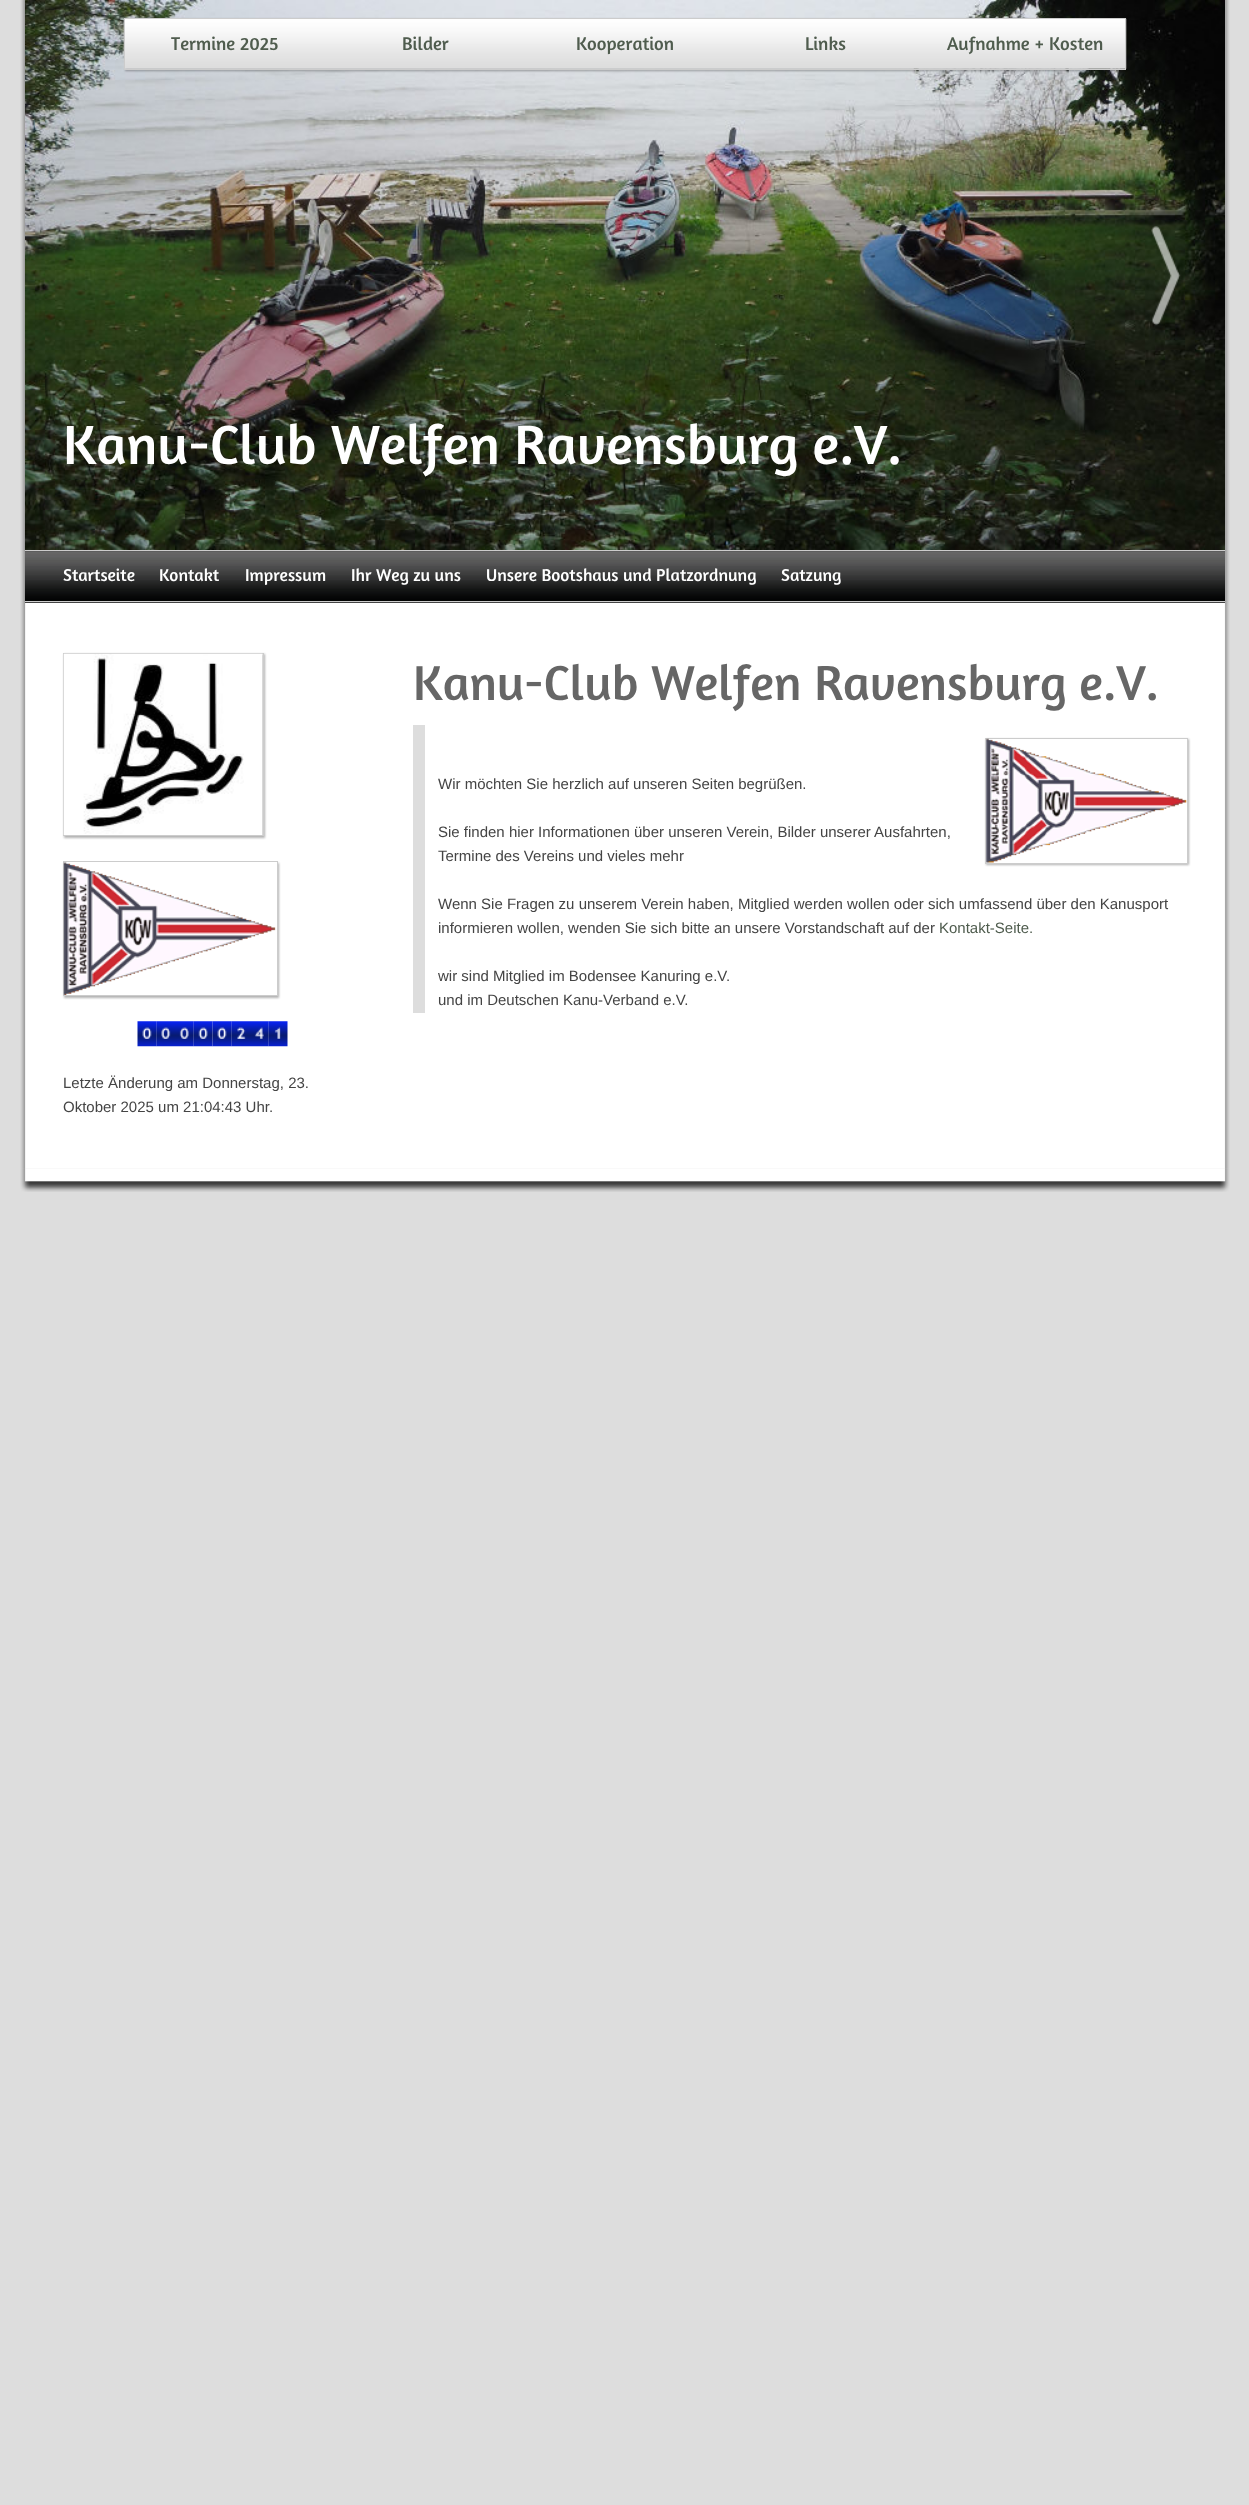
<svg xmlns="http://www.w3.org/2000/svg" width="1249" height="2505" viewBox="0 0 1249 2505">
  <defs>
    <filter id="blur1" x="-50%" y="-200%" width="200%" height="500%"><feGaussianBlur stdDeviation="1"/></filter>
    <clipPath id="clip1"><path d="M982 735H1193V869H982ZM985 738H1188V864H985Z" clip-rule="evenodd"/></clipPath>
    <clipPath id="clip2"><path d="M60 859H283V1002H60ZM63 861H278V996H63Z" clip-rule="evenodd"/></clipPath>
  </defs>
  <rect width="100%" height="100%" fill="#dddddd"/>
  <image x="20" y="0" width="1210" height="1169" href="img1.png"/>
  <image x="25" y="0" width="1200" height="550" href="img4.png"/>
  <rect x="125" y="19" width="1003" height="52" fill="#000000" fill-opacity="0.3" filter="url(#blur1)"/>
  <image x="123" y="18" width="1004" height="51" href="img2.png"/>
  <rect x="124.5" y="18.5" width="1001" height="51" fill="none" stroke="#cccccc"/>
  <text x="171" y="50" font-family="Amaranth" font-size="18.75" fill="#4f5c4e">Termine 2025</text>
  <text x="402" y="50" font-family="Amaranth" font-size="18.75" fill="#4f5c4e">Bilder</text>
  <text x="576" y="50" font-family="Amaranth" font-size="18.75" fill="#4f5c4e">Kooperation</text>
  <text x="805" y="50" font-family="Amaranth" font-size="18.75" fill="#4f5c4e">Links</text>
  <text x="947" y="50" font-family="Amaranth" font-size="18.75" fill="#4f5c4e">Aufnahme + Kosten</text>
  <image x="1151" y="226" width="32" height="100" href="img3.png"/>
  <text x="63" y="464" font-family="Amaranth" font-size="56.25" fill="#ffffff">Kanu-Club Welfen Ravensburg e.V.</text>
  <rect x="25" y="551" width="1200" height="52" fill="#444444"/>
  <image x="25" y="551" width="1200" height="50" href="img5.png"/>
  <rect x="25" y="550" width="1200" height="1" fill="#cccccc"/>
  <rect x="25" y="601" width="1200" height="1" fill="#cccccc"/>
  <text x="63" y="581" font-family="Amaranth" font-size="17.5" fill="#ffffff">Startseite</text>
  <text x="159" y="581" font-family="Amaranth" font-size="17.5" fill="#ffffff">Kontakt</text>
  <text x="245" y="581" font-family="Amaranth" font-size="17.5" fill="#ffffff">Impressum</text>
  <text x="351" y="581" font-family="Amaranth" font-size="17.5" fill="#ffffff">Ihr Weg zu uns</text>
  <text x="486" y="581" font-family="Amaranth" font-size="17.5" fill="#ffffff">Unsere Bootshaus und Platzordnung</text>
  <text x="781" y="581" font-family="Amaranth" font-size="17.5" fill="#ffffff">Satzung</text>
  <text x="413" y="700" font-family="Amaranth" font-size="50" fill="#666666">Kanu-Club Welfen Ravensburg e.V.</text>
  <g clip-path="url(#clip1)">
    <rect x="986" y="739" width="203" height="126" fill="#000000" fill-opacity="0.3" filter="url(#blur1)"/>
  </g>
  <rect x="985.5" y="738.5" width="202" height="125" fill="none" stroke="#cccccc"/>
  <image x="986" y="738" width="201" height="125" href="img6.png"/>
  <rect x="413" y="725" width="12" height="288" fill="#dddddd"/>
  <text x="438" y="789" font-family="Liberation Sans" font-size="15" fill="#444444">Wir möchten Sie herzlich auf unseren Seiten begrüßen.</text>
  <text x="438" y="837" font-family="Liberation Sans" font-size="15" fill="#444444">Sie finden hier Informationen über unseren Verein, Bilder unserer Ausfahrten,</text>
  <text x="438" y="861" font-family="Liberation Sans" font-size="15" fill="#444444">Termine des Vereins und vieles mehr</text>
  <text x="438" y="909" font-family="Liberation Sans" font-size="15" fill="#444444">Wenn Sie Fragen zu unserem Verein haben, Mitglied werden wollen oder sich umfassend über den Kanusport</text>
  <text x="438" y="933" font-family="Liberation Sans" font-size="15" fill="#444444">informieren wollen, wenden Sie sich bitte an unsere Vorstandschaft auf der</text>
  <text x="939" y="933" font-family="Liberation Sans" font-size="15" fill="#4f5c4e">Kontakt-Seite.</text>
  <text x="438" y="981" font-family="Liberation Sans" font-size="15" fill="#444444">wir sind Mitglied im Bodensee Kanuring e.V.</text>
  <text x="438" y="1005" font-family="Liberation Sans" font-size="15" fill="#444444">und im Deutschen Kanu-Verband e.V.</text>
  <rect x="64" y="654" width="201" height="184" fill="#000000" fill-opacity="0.3" filter="url(#blur1)"/>
  <rect x="63.5" y="653.5" width="200" height="182" fill="none" stroke="#cccccc"/>
  <image x="63" y="653" width="200" height="182" href="img7.png"/>
  <g clip-path="url(#clip2)">
    <rect x="64" y="863" width="215" height="135" fill="#000000" fill-opacity="0.3" filter="url(#blur1)"/>
  </g>
  <rect x="63.5" y="861.5" width="214" height="134" fill="none" stroke="#cccccc"/>
  <image x="63" y="862" width="213" height="133" href="img8.png"/>
  <image x="137" y="1021" width="20" height="26" href="img9.png"/>
  <image x="156" y="1021" width="19" height="26" href="img10.png"/>
  <image x="175" y="1021" width="19" height="26" href="img11.png"/>
  <image x="193" y="1021" width="20" height="26" href="img12.png"/>
  <image x="212" y="1021" width="20" height="26" href="img13.png"/>
  <image x="231" y="1021" width="19" height="26" href="img14.png"/>
  <image x="250" y="1021" width="19" height="26" href="img15.png"/>
  <image x="268" y="1021" width="20" height="26" href="img16.png"/>
  <text x="63" y="1088" font-family="Liberation Sans" font-size="15" fill="#444444">Letzte Änderung am Donnerstag, 23.</text>
  <text x="63" y="1112" font-family="Liberation Sans" font-size="15" fill="#444444">Oktober 2025 um 21:04:43 Uhr.</text>
  <image x="20" y="1168" width="1210" height="24" href="img17.png"/>
</svg>
